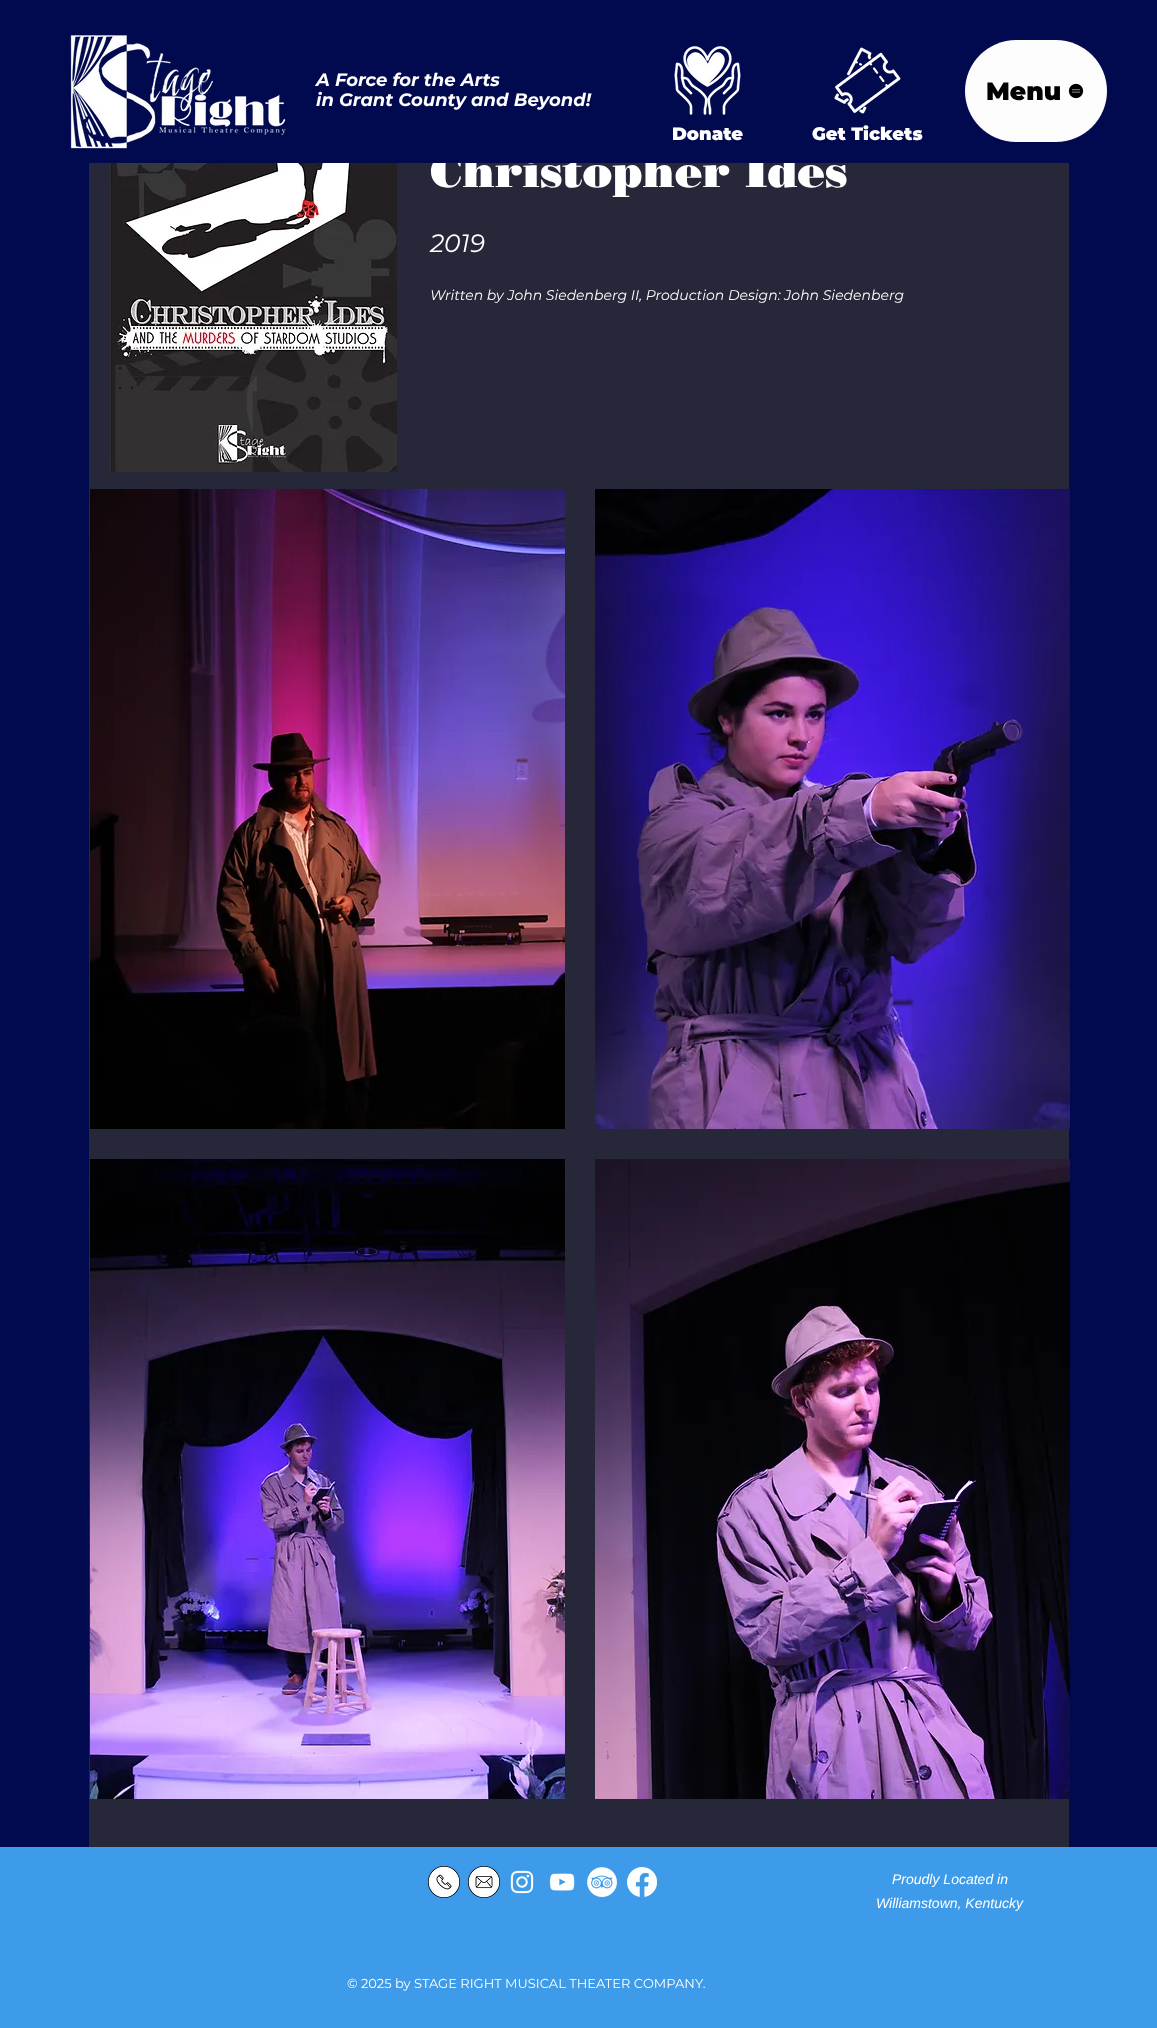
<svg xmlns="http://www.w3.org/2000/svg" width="1157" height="2028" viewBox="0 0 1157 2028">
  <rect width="100%" height="100%" fill="#020a4f"/>
  <image x="70" y="35" width="216" height="114" href="img1.png"/>
  <text x="316" y="86" font-family="Montserrat" font-size="18" font-weight="bold" font-style="italic" fill="#ffffff">A Force for the Arts</text>
  <text x="316" y="106" font-family="Montserrat" font-size="18" font-weight="bold" font-style="italic" fill="#ffffff">in Grant County and Beyond!</text>
  <image x="674" y="46" width="67" height="69" href="img2.png"/>
  <image x="834" y="47" width="67" height="67" href="img3.png"/>
  <rect x="965" y="40" width="142" height="102" rx="51" fill="#fefdfd"/>
  <text x="986" y="100" font-family="Montserrat" font-size="25" font-weight="100" fill="#000000">Menu</text>
  <image x="1068" y="83" width="16" height="16" href="img4.png"/>
  <text x="672" y="140" font-family="Montserrat" font-size="18" font-weight="100" fill="#ffffff">Donate</text>
  <text x="812" y="140" font-family="Montserrat" font-size="18" font-weight="100" fill="#ffffff">Get Tickets</text>
  <rect x="89" y="163" width="980" height="1684" fill="#262839"/>
  <text x="430" y="187" font-family="'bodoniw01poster'" font-size="45" font-weight="900" fill="#ffffff">Christopher Ides</text>
  <rect x="432" y="154" width="363" height="9" fill="#020a4f"/>
  <image x="110" y="163" width="287" height="309" href="img5.png"/>
  <text x="430" y="252" font-family="Montserrat" font-size="25" font-style="italic" fill="#ffffff">2019</text>
  <text x="430" y="300" font-family="Montserrat" font-size="14" font-style="italic" fill="#ffffff">Written by John Siedenberg II, Production Design: John Siedenberg</text>
  <image x="90" y="489" width="475" height="640" href="img6.png"/>
  <image x="595" y="489" width="475" height="640" href="img7.png"/>
  <image x="90" y="1159" width="475" height="640" href="img8.png"/>
  <image x="595" y="1159" width="475" height="640" href="img9.png"/>
  <rect x="0" y="1847" width="1157" height="181" fill="#3d9be9"/>
  <image x="428" y="1866" width="32" height="32" href="img10.png"/>
  <image x="468" y="1866" width="32" height="32" href="img11.png"/>
  <image x="510" y="1870" width="24" height="24" href="img12.png"/>
  <image x="549" y="1873" width="26" height="18" href="img13.png"/>
  <image x="587" y="1867" width="30" height="30" href="img14.png"/>
  <image x="627" y="1867" width="30" height="30" href="img15.png"/>
  <text x="892" y="1884" font-family="Liberation Sans" font-size="14" font-style="italic" fill="#ffffff">Proudly Located in</text>
  <text x="876" y="1908" font-family="Liberation Sans" font-size="14" font-style="italic" fill="#ffffff">Williamstown, Kentucky</text>
  <text x="347" y="1988" font-family="Montserrat" font-size="13" fill="#ffffff">© 2025 by STAGE RIGHT MUSICAL THEATER COMPANY.</text>
</svg>
